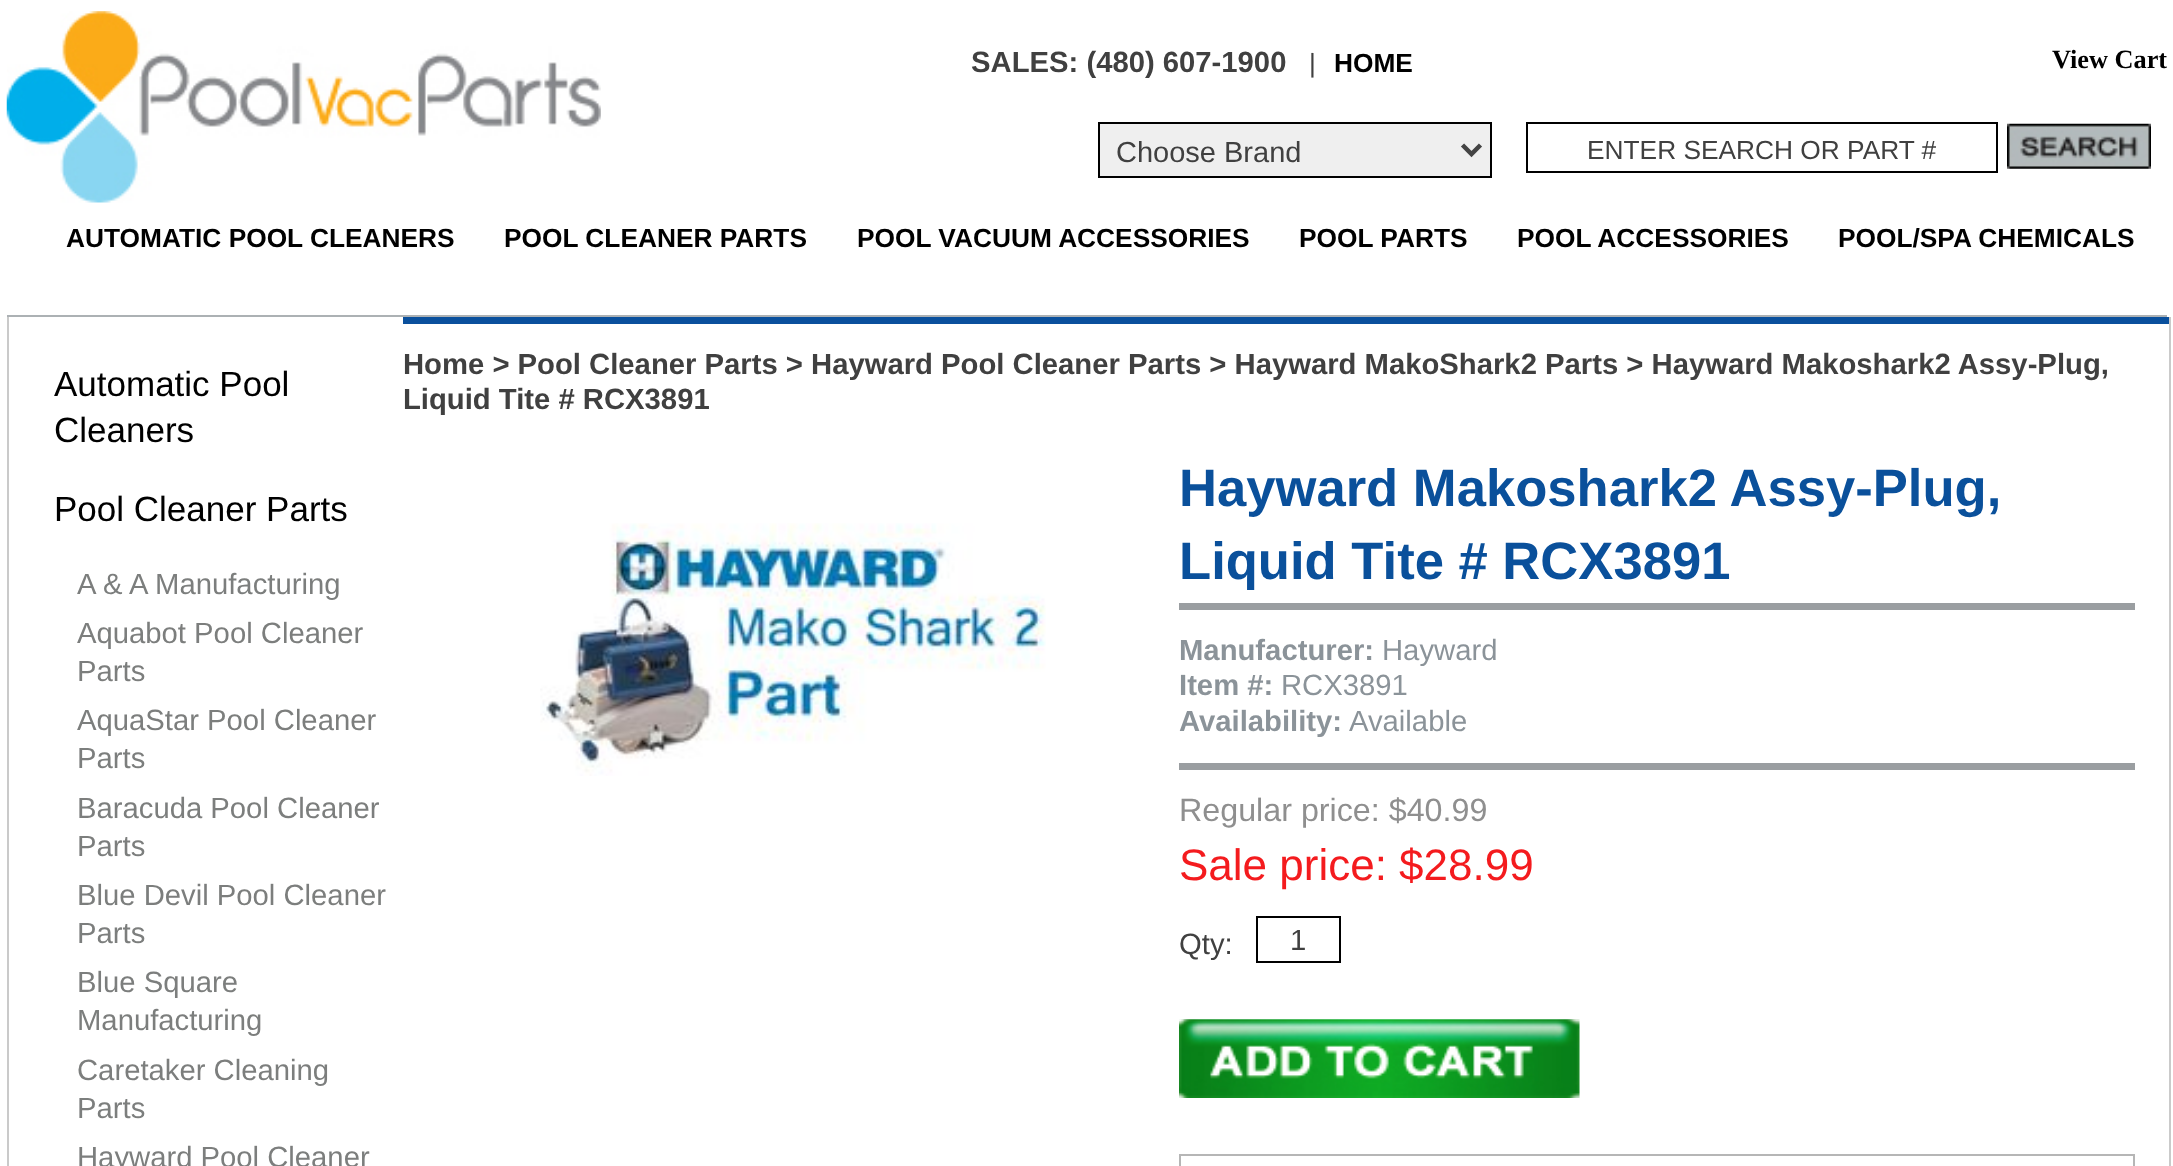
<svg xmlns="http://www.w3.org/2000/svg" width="2173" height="1166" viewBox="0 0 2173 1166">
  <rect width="100%" height="100%" fill="#ffffff"/>
  <rect x="7" y="315" width="2160" height="2" fill="#acb1b4"/>
  <image x="6" y="11" width="595" height="192" href="img1.png"/>
  <text x="971" y="72" font-family="Liberation Sans" font-size="29.25" font-weight="bold" fill="#404040">SALES: (480) 607-1900</text>
  <text x="1309" y="72" font-family="Liberation Sans" font-size="26.3" fill="#404040">|</text>
  <text x="1334" y="72" font-family="Liberation Sans" font-size="26.3" font-weight="bold" fill="#000000">HOME</text>
  <text x="2052" y="68" font-family="Liberation Serif" font-size="26.3" font-weight="bold" fill="#000000">View Cart</text>
  <rect x="1099" y="123" width="392" height="54" fill="#efefef" stroke="#000000" stroke-width="2"/>
  <path d="M1462.5 145L1471.5 154L1480.5 145" fill="none" stroke="#444444" stroke-width="4.5"/>
  <text x="1116" y="162" font-family="Liberation Sans" font-size="29" fill="#404040">Choose Brand</text>
  <rect x="1527" y="123" width="470" height="49" fill="none" stroke="#000000" stroke-width="2"/>
  <text x="1587" y="159" font-family="Liberation Sans" font-size="26.3" fill="#404040">ENTER SEARCH OR PART #</text>
  <image x="2007" y="123" width="144" height="46" href="img2.png"/>
  <text x="66" y="247" font-family="Liberation Sans" font-size="26.3" font-weight="bold" fill="#000000">AUTOMATIC POOL CLEANERS</text>
  <text x="504" y="247" font-family="Liberation Sans" font-size="26.3" font-weight="bold" fill="#000000">POOL CLEANER PARTS</text>
  <text x="857" y="247" font-family="Liberation Sans" font-size="26.3" font-weight="bold" fill="#000000">POOL VACUUM ACCESSORIES</text>
  <text x="1299" y="247" font-family="Liberation Sans" font-size="26.3" font-weight="bold" fill="#000000">POOL PARTS</text>
  <text x="1517" y="247" font-family="Liberation Sans" font-size="26.3" font-weight="bold" fill="#000000">POOL ACCESSORIES</text>
  <text x="1838" y="247" font-family="Liberation Sans" font-size="26.3" font-weight="bold" fill="#000000">POOL/SPA CHEMICALS</text>
  <rect x="2169" y="317" width="2" height="849" fill="#cacaca"/>
  <rect x="7" y="317" width="2" height="849" fill="#cacaca"/>
  <text x="54" y="396" font-family="Liberation Sans" font-size="35" fill="#000000">Automatic Pool</text>
  <text x="54" y="442" font-family="Liberation Sans" font-size="35" fill="#000000">Cleaners</text>
  <text x="54" y="521" font-family="Liberation Sans" font-size="35" fill="#000000">Pool Cleaner Parts</text>
  <text x="77" y="594" font-family="Liberation Sans" font-size="29.25" fill="#7c7e7d">A &amp; A Manufacturing</text>
  <text x="77" y="643" font-family="Liberation Sans" font-size="29.25" fill="#7c7e7d">Aquabot Pool Cleaner</text>
  <text x="77" y="681" font-family="Liberation Sans" font-size="29.25" fill="#7c7e7d">Parts</text>
  <text x="77" y="730" font-family="Liberation Sans" font-size="29.25" fill="#7c7e7d">AquaStar Pool Cleaner</text>
  <text x="77" y="768" font-family="Liberation Sans" font-size="29.25" fill="#7c7e7d">Parts</text>
  <text x="77" y="818" font-family="Liberation Sans" font-size="29.25" fill="#7c7e7d">Baracuda Pool Cleaner</text>
  <text x="77" y="856" font-family="Liberation Sans" font-size="29.25" fill="#7c7e7d">Parts</text>
  <text x="77" y="905" font-family="Liberation Sans" font-size="29.25" fill="#7c7e7d">Blue Devil Pool Cleaner</text>
  <text x="77" y="943" font-family="Liberation Sans" font-size="29.25" fill="#7c7e7d">Parts</text>
  <text x="77" y="992" font-family="Liberation Sans" font-size="29.25" fill="#7c7e7d">Blue Square</text>
  <text x="77" y="1030" font-family="Liberation Sans" font-size="29.25" fill="#7c7e7d">Manufacturing</text>
  <text x="77" y="1080" font-family="Liberation Sans" font-size="29.25" fill="#7c7e7d">Caretaker Cleaning</text>
  <text x="77" y="1118" font-family="Liberation Sans" font-size="29.25" fill="#7c7e7d">Parts</text>
  <text x="77" y="1167" font-family="Liberation Sans" font-size="29.25" fill="#7c7e7d">Hayward Pool Cleaner</text>
  <rect x="403" y="317" width="1766" height="7" fill="#0a509d"/>
  <text x="403" y="374" font-family="Liberation Sans" font-size="29.25" font-weight="bold" fill="#404040">Home &gt; Pool Cleaner Parts &gt; Hayward Pool Cleaner Parts &gt; Hayward MakoShark2 Parts &gt; Hayward Makoshark2 Assy-Plug,</text>
  <text x="403" y="409" font-family="Liberation Sans" font-size="29.25" font-weight="bold" fill="#404040">Liquid Tite # RCX3891</text>
  <image x="540" y="523" width="506" height="253" href="img3.png"/>
  <rect x="1179" y="603" width="956" height="7" fill="#9a9ea1"/>
  <text x="1179" y="506" font-family="Liberation Sans" font-size="52.6" font-weight="bold" fill="#0a509b">Hayward Makoshark2 Assy-Plug,</text>
  <text x="1179" y="579" font-family="Liberation Sans" font-size="52.6" font-weight="bold" fill="#0a509b">Liquid Tite # RCX3891</text>
  <text x="1179" y="660" font-family="Liberation Sans" font-size="29.25" font-weight="bold" fill="#8b9399">Manufacturer:</text>
  <text x="1382" y="660" font-family="Liberation Sans" font-size="29.25" fill="#8b9399">Hayward</text>
  <text x="1179" y="695" font-family="Liberation Sans" font-size="29.25" font-weight="bold" fill="#8b9399">Item #:</text>
  <text x="1281" y="695" font-family="Liberation Sans" font-size="29.25" fill="#8b9399">RCX3891</text>
  <text x="1179" y="731" font-family="Liberation Sans" font-size="29.25" font-weight="bold" fill="#8b9399">Availability:</text>
  <text x="1349" y="731" font-family="Liberation Sans" font-size="29.25" fill="#8b9399">Available</text>
  <rect x="1179" y="763" width="956" height="7" fill="#9a9ea1"/>
  <text x="1179" y="821" font-family="Liberation Sans" font-size="32.25" fill="#8f8f8f">Regular price: $40.99</text>
  <text x="1179" y="880" font-family="Liberation Sans" font-size="44" fill="#f41b1e">Sale price: $28.99</text>
  <text x="1179" y="954" font-family="Liberation Sans" font-size="29.25" fill="#404040">Qty:</text>
  <rect x="1257" y="917" width="83" height="45" fill="none" stroke="#000000" stroke-width="2"/>
  <text x="1290" y="950" font-family="Liberation Sans" font-size="29.25" fill="#404040">1</text>
  <image x="1179" y="1019" width="401" height="79" href="img4.png"/>
  <rect x="1180" y="1155" width="954" height="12" fill="none" stroke="#b6b6b6" stroke-width="2"/>
</svg>
